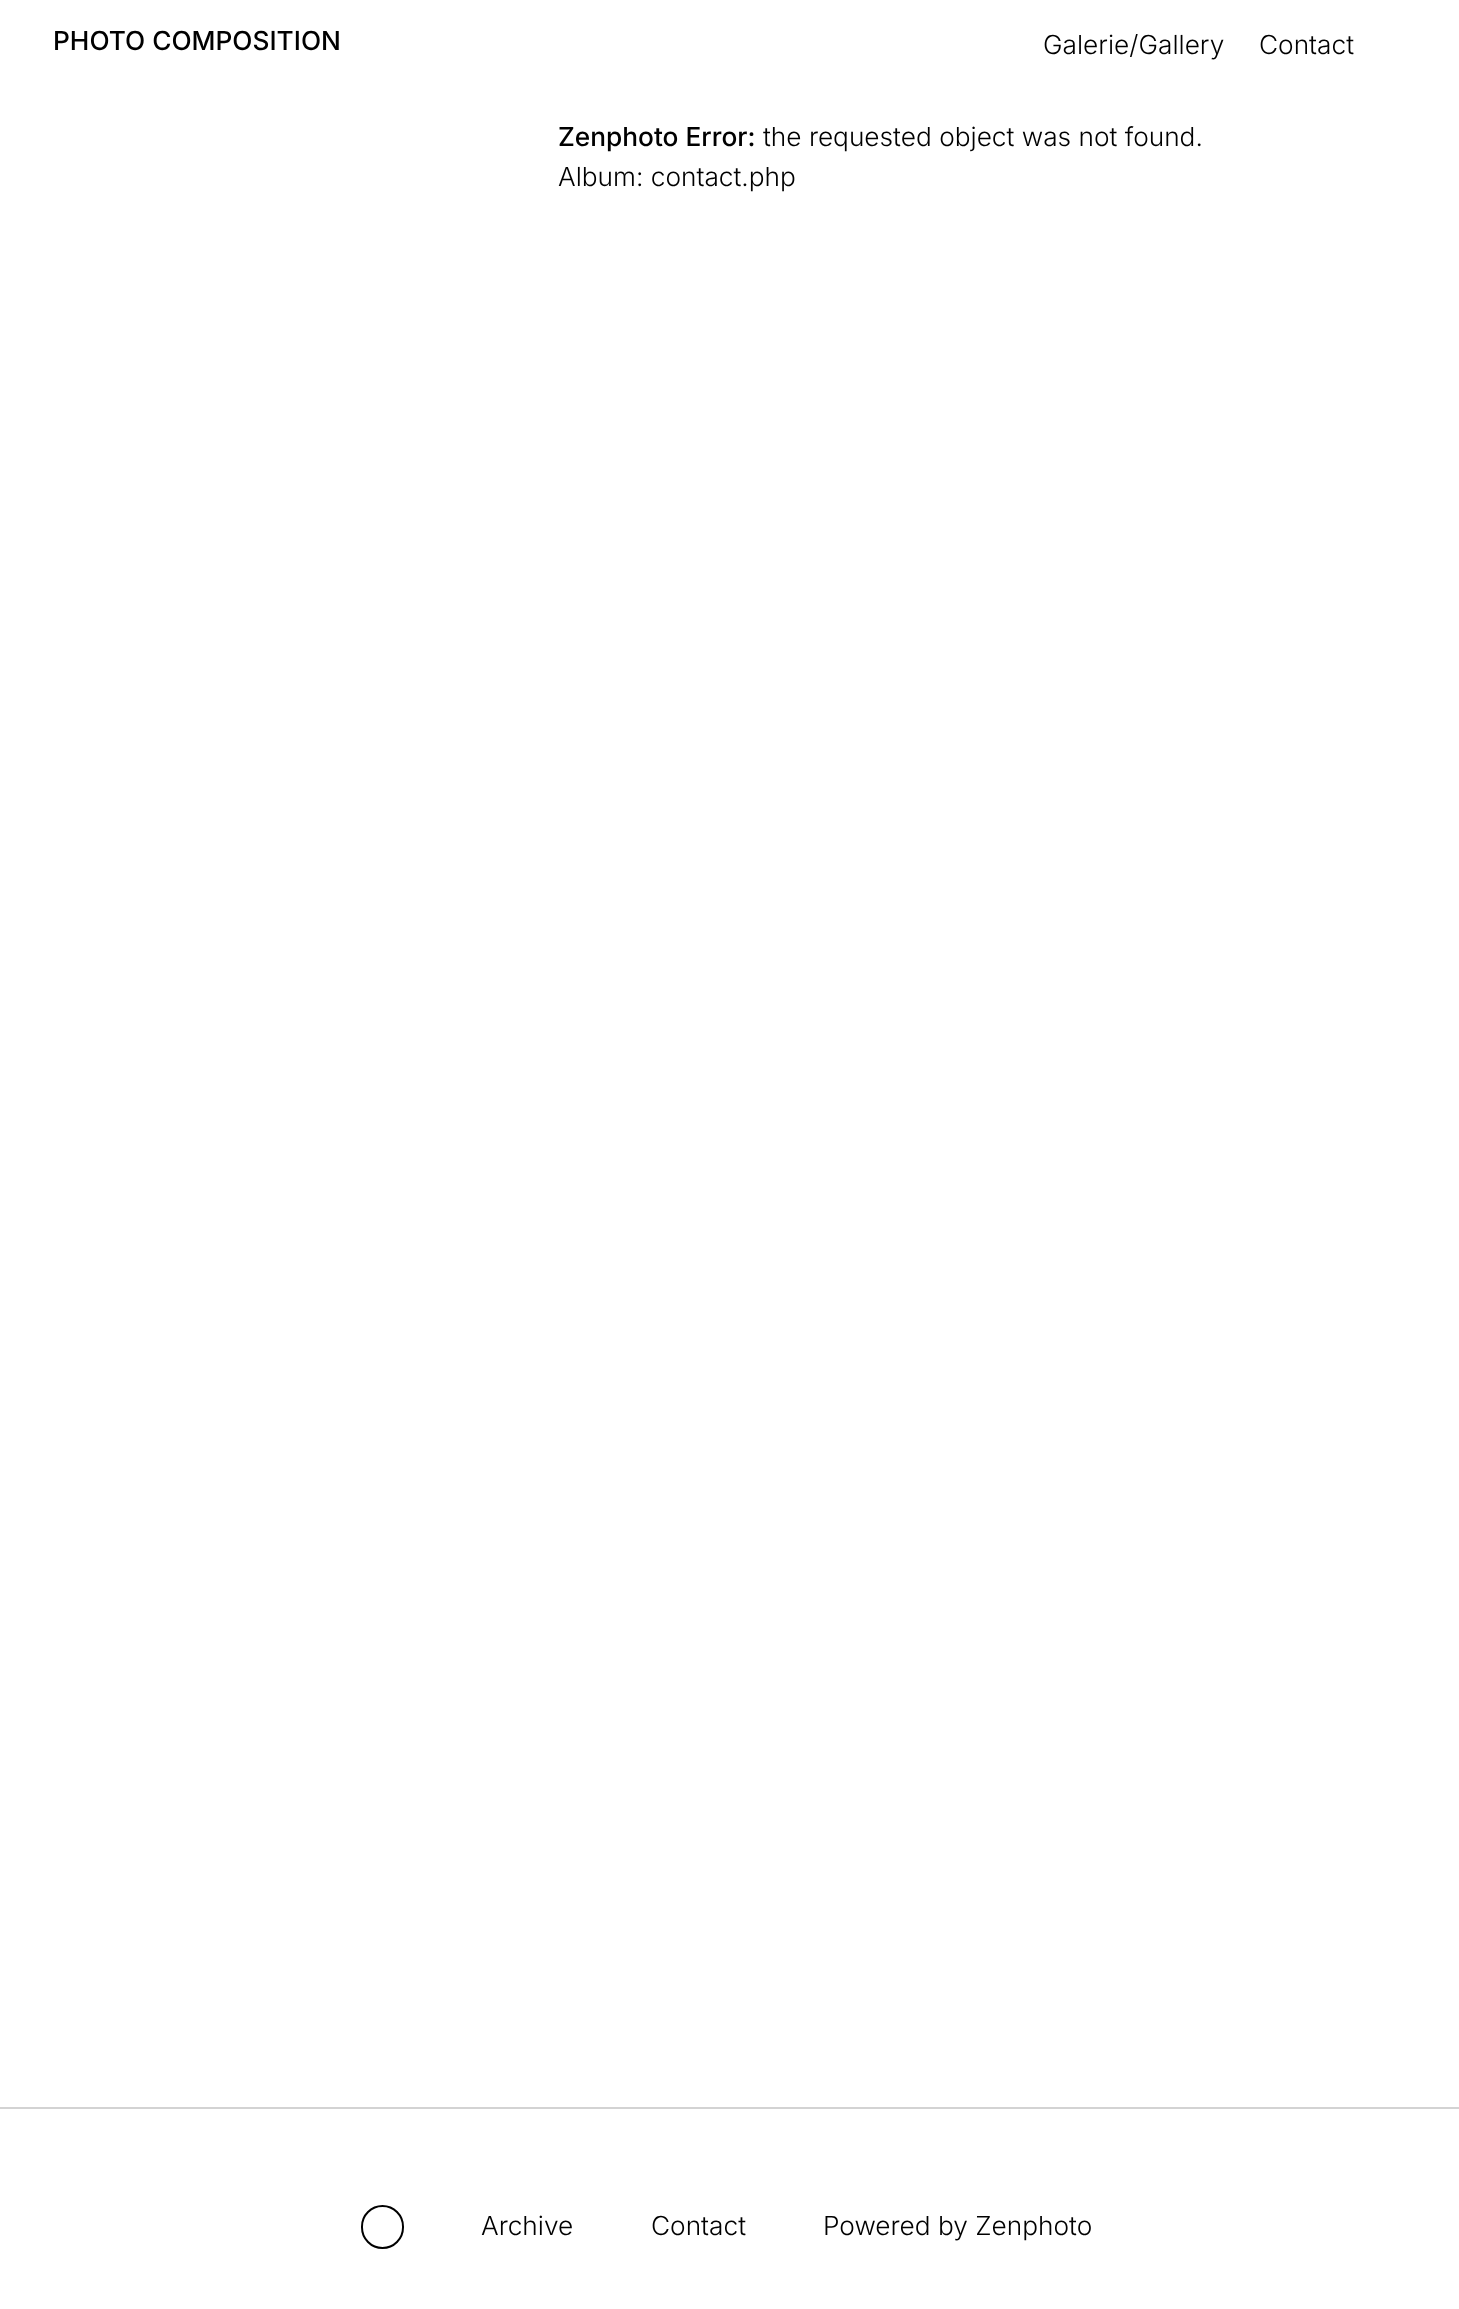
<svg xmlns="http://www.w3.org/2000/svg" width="1459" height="2309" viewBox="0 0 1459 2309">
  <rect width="100%" height="100%" fill="#ffffff"/>
  <text x="53" y="50" font-family="Inter" font-size="26.25" font-weight="500" fill="#000000">PHOTO COMPOSITION</text>
  <text x="1043" y="54" font-family="Inter" font-size="26.25" font-weight="300" fill="#000000">Galerie/Gallery</text>
  <text x="1259" y="54" font-family="Inter" font-size="26.25" font-weight="300" fill="#000000">Contact</text>
  <text x="558" y="146" font-family="Inter" font-size="26.25" font-weight="500" fill="#000000">Zenphoto Error:</text>
  <text x="763" y="146" font-family="Inter" font-size="26.25" font-weight="300" fill="#000000">the requested object was not found.</text>
  <text x="558" y="186" font-family="Inter" font-size="26.25" font-weight="300" fill="#000000">Album: contact.php</text>
  <rect x="0" y="2107" width="1459" height="2" fill="#d3d3d3"/>
  <rect x="362" y="2206" width="41" height="42" rx="20.5" fill="none" stroke="#000000" stroke-width="2"/>
  <text x="481" y="2235" font-family="Inter" font-size="26.25" font-weight="300" fill="#000000">Archive</text>
  <text x="651" y="2235" font-family="Inter" font-size="26.25" font-weight="300" fill="#000000">Contact</text>
  <text x="823" y="2235" font-family="Inter" font-size="26.25" font-weight="300" fill="#000000">Powered by Zenphoto</text>
</svg>
